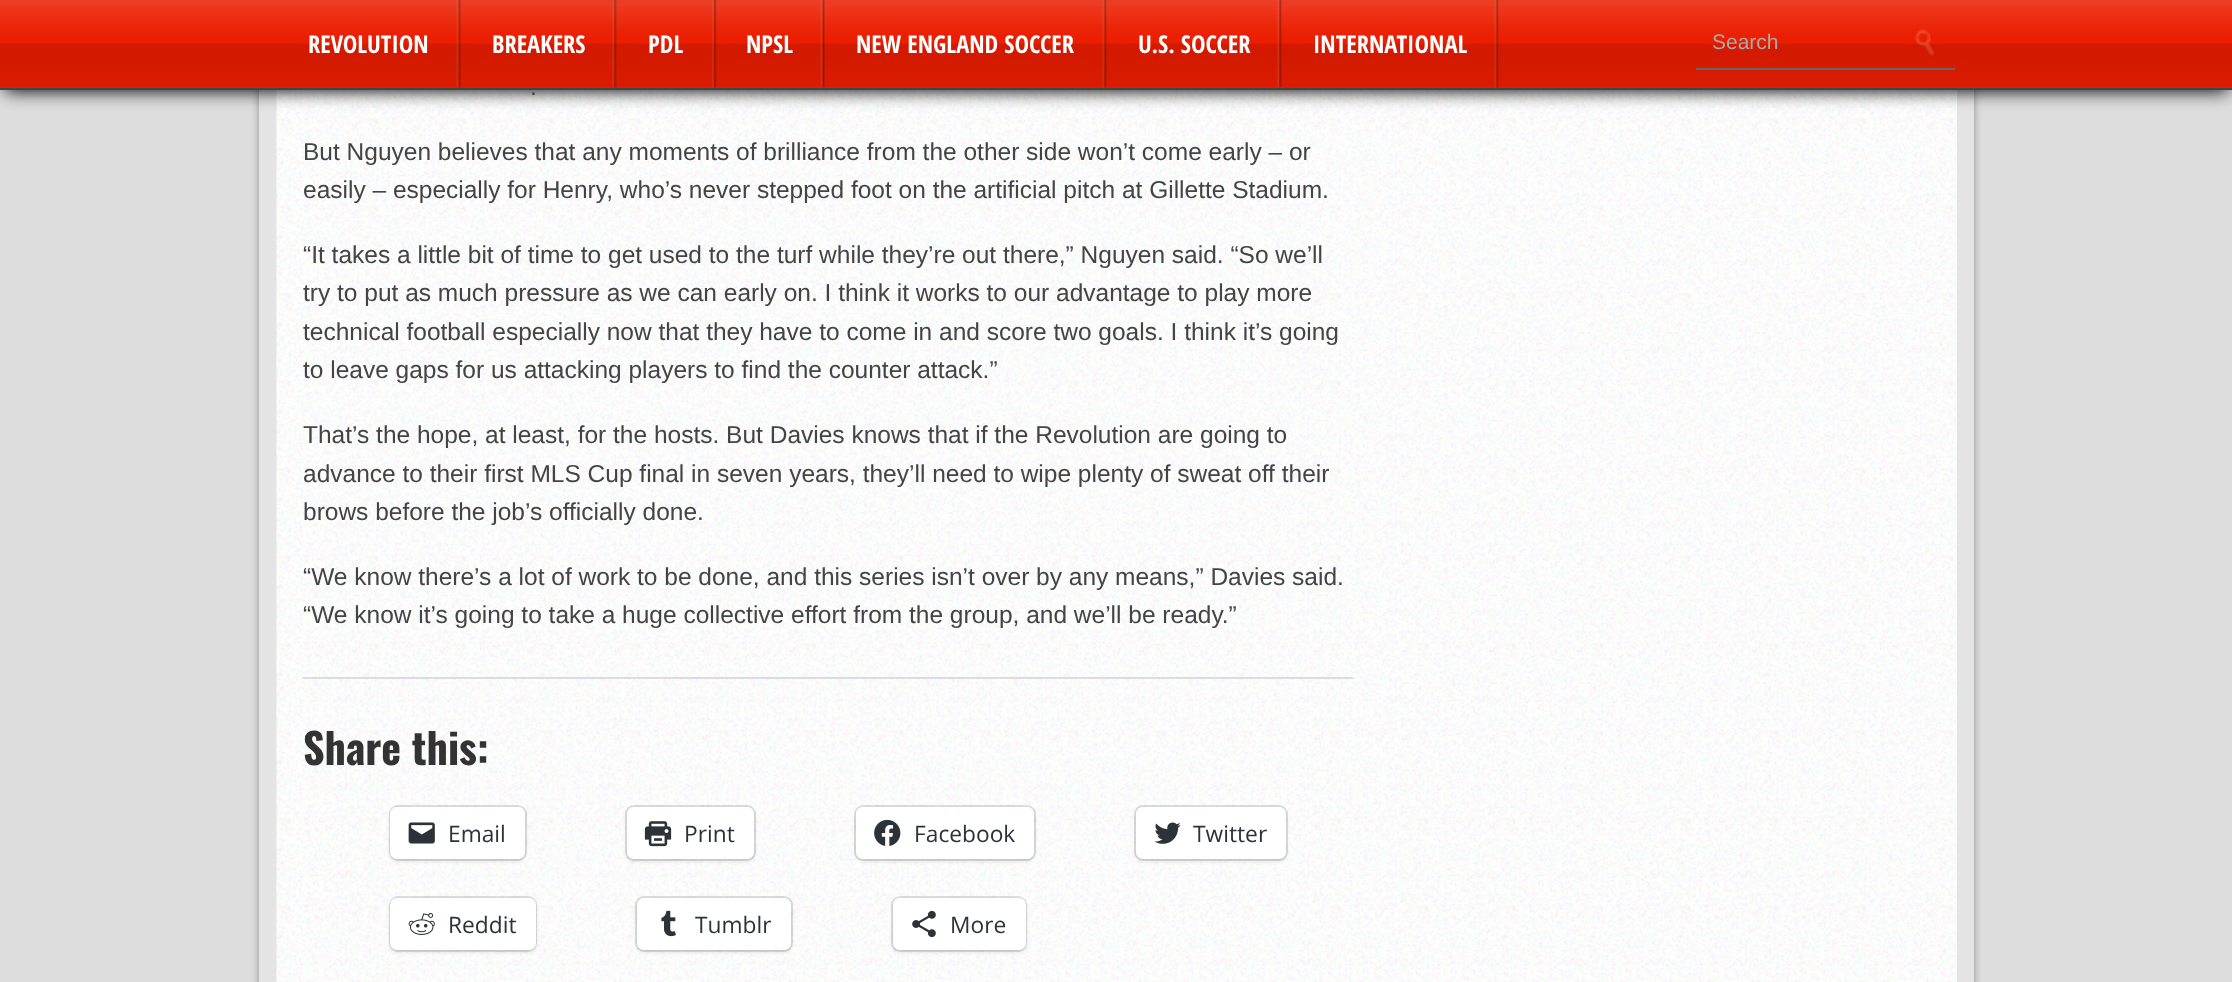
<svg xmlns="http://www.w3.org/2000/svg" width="2232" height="982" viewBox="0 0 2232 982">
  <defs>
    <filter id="blur1" x="-50%" y="-200%" width="200%" height="500%"><feGaussianBlur stdDeviation="6"/></filter>
    <filter id="blur2" x="-50%" y="-200%" width="200%" height="500%"><feGaussianBlur stdDeviation="9"/></filter>
    <filter id="blur3" x="-50%" y="-200%" width="200%" height="500%"><feGaussianBlur stdDeviation="2"/></filter>
  </defs>
  <rect width="100%" height="100%" fill="#dddddd"/>
  <rect x="264" y="-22" width="1705" height="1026" rx="4" fill="#000000" filter="url(#blur1)"/>
  <rect x="259" y="90" width="1715" height="892" fill="#e4e4e4"/>
  <rect x="1956" y="90" width="1" height="892" fill="#ffffff"/>
  <image x="276" y="90" width="1681" height="892" href="img9.png"/>
  <rect x="5" y="12" width="2223" height="79" fill="#000000" filter="url(#blur2)"/>
  <rect x="0" y="0" width="2232" height="88" fill="#eb1e00"/>
  <image x="0" y="0" width="2232" height="88" href="img1.png"/>
  <rect x="0" y="88" width="2232" height="2" fill="#444444"/>
  <image x="456" y="0" width="5" height="88" href="img2.png"/>
  <text x="308" y="53" font-family="Open Sans Condensed" font-size="24.5" font-weight="bold" fill="#ffffff">REVOLUTION</text>
  <image x="612" y="0" width="5" height="88" href="img3.png"/>
  <text x="492" y="53" font-family="Open Sans Condensed" font-size="24.5" font-weight="bold" fill="#ffffff">BREAKERS</text>
  <image x="712" y="0" width="5" height="88" href="img4.png"/>
  <text x="648" y="53" font-family="Open Sans Condensed" font-size="24.5" font-weight="bold" fill="#ffffff">PDL</text>
  <image x="820" y="0" width="5" height="87" href="img5.png"/>
  <text x="746" y="53" font-family="Open Sans Condensed" font-size="24.5" font-weight="bold" fill="#ffffff">NPSL</text>
  <image x="1102" y="0" width="5" height="88" href="img3.png"/>
  <text x="856" y="53" font-family="Open Sans Condensed" font-size="24.5" font-weight="bold" fill="#ffffff">NEW ENGLAND SOCCER</text>
  <image x="1277" y="0" width="5" height="87" href="img6.png"/>
  <text x="1138" y="53" font-family="Open Sans Condensed" font-size="24.5" font-weight="bold" fill="#ffffff">U.S. SOCCER</text>
  <image x="1494" y="0" width="5" height="88" href="img7.png"/>
  <text x="1313" y="53" font-family="Open Sans Condensed" font-size="24.5" font-weight="bold" fill="#ffffff">INTERNATIONAL</text>
  <image x="1914" y="29" width="20" height="27" href="img8.png"/>
  <rect x="1696" y="68" width="259" height="2" fill="#666666"/>
  <text x="1712" y="49" font-family="Liberation Sans" font-size="21" fill="#aaaaaa">Search</text>
  <text x="530" y="95" font-family="Liberation Sans" font-size="24.5" fill="#444444">.</text>
  <text x="303" y="160" font-family="Liberation Sans" font-size="24.5" fill="#444444">But Nguyen believes that any moments of brilliance from the other side won’t come early – or</text>
  <text x="303" y="198" font-family="Liberation Sans" font-size="24.5" fill="#444444">easily – especially for Henry, who’s never stepped foot on the artificial pitch at Gillette Stadium.</text>
  <text x="303" y="263" font-family="Liberation Sans" font-size="24.5" fill="#444444">“It takes a little bit of time to get used to the turf while they’re out there,” Nguyen said. “So we’ll</text>
  <text x="303" y="301" font-family="Liberation Sans" font-size="24.5" fill="#444444">try to put as much pressure as we can early on. I think it works to our advantage to play more</text>
  <text x="303" y="340" font-family="Liberation Sans" font-size="24.5" fill="#444444">technical football especially now that they have to come in and score two goals. I think it’s going</text>
  <text x="303" y="378" font-family="Liberation Sans" font-size="24.5" fill="#444444">to leave gaps for us attacking players to find the counter attack.”</text>
  <text x="303" y="443" font-family="Liberation Sans" font-size="24.5" fill="#444444">That’s the hope, at least, for the hosts. But Davies knows that if the Revolution are going to</text>
  <text x="303" y="482" font-family="Liberation Sans" font-size="24.5" fill="#444444">advance to their first MLS Cup final in seven years, they’ll need to wipe plenty of sweat off their</text>
  <text x="303" y="520" font-family="Liberation Sans" font-size="24.5" fill="#444444">brows before the job’s officially done.</text>
  <text x="303" y="585" font-family="Liberation Sans" font-size="24.5" fill="#444444">“We know there’s a lot of work to be done, and this series isn’t over by any means,” Davies said.</text>
  <text x="303" y="623" font-family="Liberation Sans" font-size="24.5" fill="#444444">“We know it’s going to take a huge collective effort from the group, and we’ll be ready.”</text>
  <rect x="303" y="677" width="1050" height="2" fill="#dcdcde"/>
  <text x="303" y="765" font-family="Oswald" font-size="42" font-weight="bold" fill="#333333">Share this:</text>
  <rect x="390" y="806" width="136" height="54" rx="8" fill="none" stroke="#000000" stroke-opacity="0.12" stroke-width="2"/>
  <rect x="390" y="809" width="135" height="52" rx="7" fill="#000000" fill-opacity="0.12" filter="url(#blur3)"/>
  <rect x="390" y="807" width="135" height="52" rx="7" fill="#ffffff"/>
  <image x="408" y="822" width="27" height="22" href="img10.png"/>
  <text x="448" y="842" font-family="Open Sans" font-size="22.75" fill="#2c3338">Email</text>
  <rect x="626" y="806" width="129" height="54" rx="8" fill="none" stroke="#000000" stroke-opacity="0.12" stroke-width="2"/>
  <rect x="627" y="809" width="127" height="52" rx="7" fill="#000000" fill-opacity="0.12" filter="url(#blur3)"/>
  <rect x="627" y="807" width="127" height="52" rx="7" fill="#ffffff"/>
  <image x="644" y="821" width="28" height="26" href="img11.png"/>
  <text x="684" y="842" font-family="Open Sans" font-size="22.75" fill="#2c3338">Print</text>
  <rect x="855" y="806" width="180" height="54" rx="8" fill="none" stroke="#000000" stroke-opacity="0.12" stroke-width="2"/>
  <rect x="856" y="809" width="178" height="52" rx="7" fill="#000000" fill-opacity="0.12" filter="url(#blur3)"/>
  <rect x="856" y="807" width="178" height="52" rx="7" fill="#ffffff"/>
  <image x="874" y="819" width="27" height="27" href="img12.png"/>
  <text x="914" y="842" font-family="Open Sans" font-size="22.75" fill="#2c3338">Facebook</text>
  <rect x="1135" y="806" width="152" height="54" rx="8" fill="none" stroke="#000000" stroke-opacity="0.12" stroke-width="2"/>
  <rect x="1136" y="809" width="150" height="52" rx="7" fill="#000000" fill-opacity="0.12" filter="url(#blur3)"/>
  <rect x="1136" y="807" width="150" height="52" rx="7" fill="#ffffff"/>
  <image x="1154" y="822" width="27" height="22" href="img13.png"/>
  <text x="1193" y="842" font-family="Open Sans" font-size="22.75" fill="#2c3338">Twitter</text>
  <rect x="390" y="897" width="146" height="54" rx="8" fill="none" stroke="#000000" stroke-opacity="0.12" stroke-width="2"/>
  <rect x="390" y="900" width="146" height="52" rx="7" fill="#000000" fill-opacity="0.12" filter="url(#blur3)"/>
  <rect x="390" y="898" width="146" height="52" rx="7" fill="#ffffff"/>
  <image x="408" y="913" width="27" height="22" href="img14.png"/>
  <text x="448" y="933" font-family="Open Sans" font-size="22.75" fill="#2c3338">Reddit</text>
  <rect x="636" y="897" width="156" height="54" rx="8" fill="none" stroke="#000000" stroke-opacity="0.12" stroke-width="2"/>
  <rect x="637" y="900" width="154" height="52" rx="7" fill="#000000" fill-opacity="0.12" filter="url(#blur3)"/>
  <rect x="637" y="898" width="154" height="52" rx="7" fill="#ffffff"/>
  <image x="661" y="910" width="15" height="27" href="img15.png"/>
  <text x="695" y="933" font-family="Open Sans" font-size="22.75" fill="#2c3338">Tumblr</text>
  <rect x="892" y="897" width="134" height="54" rx="8" fill="none" stroke="#000000" stroke-opacity="0.12" stroke-width="2"/>
  <rect x="893" y="900" width="133" height="52" rx="7" fill="#000000" fill-opacity="0.12" filter="url(#blur3)"/>
  <rect x="893" y="898" width="133" height="52" rx="7" fill="#ffffff"/>
  <image x="912" y="910" width="24" height="28" href="img16.png"/>
  <text x="950" y="933" font-family="Open Sans" font-size="22.75" fill="#2c3338">More</text>
</svg>
